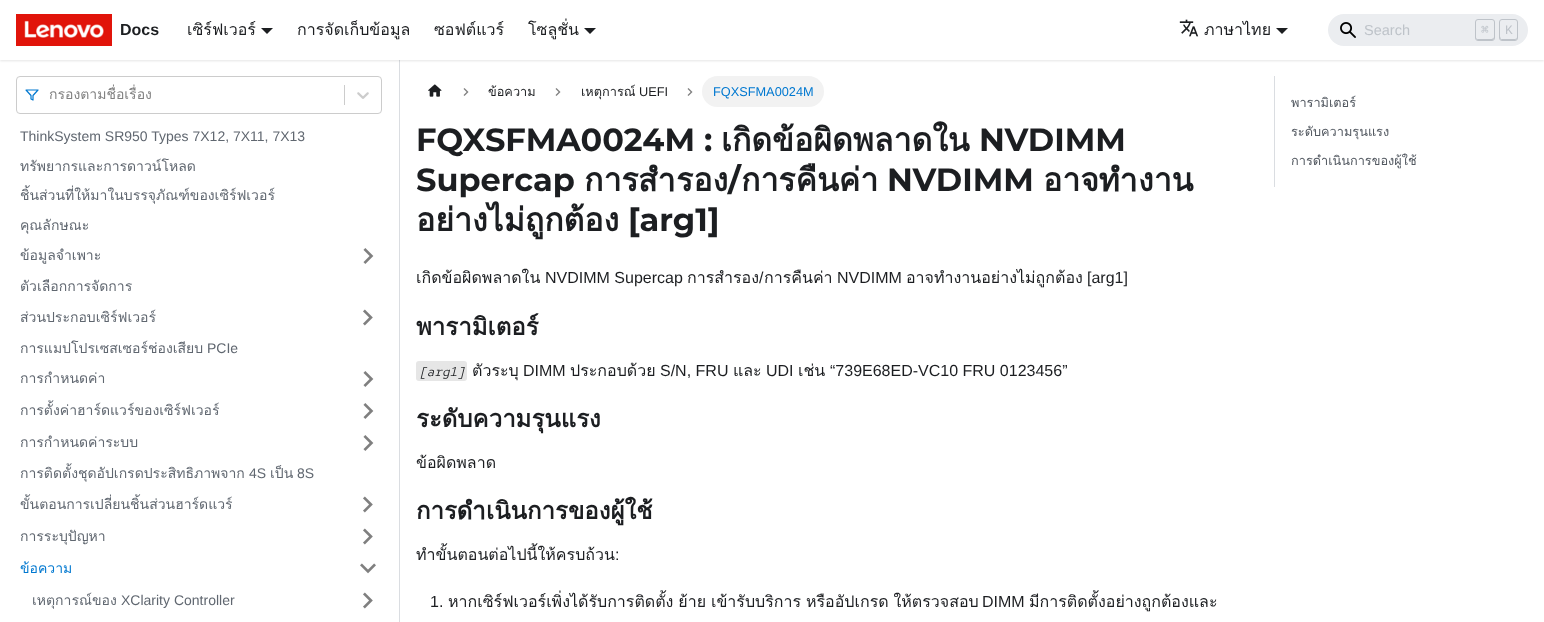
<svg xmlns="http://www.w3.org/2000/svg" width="1544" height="622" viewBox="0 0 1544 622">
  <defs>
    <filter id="blur1" x="-50%" y="-200%" width="200%" height="500%"><feGaussianBlur stdDeviation="1"/></filter>
  </defs>
  <rect width="100%" height="100%" fill="#ffffff"/>
  <rect x="399" y="60" width="1" height="562" fill="#dadde1"/>
  <rect x="0" y="1" width="1544" height="60" fill="#000000" fill-opacity="0.1" filter="url(#blur1)"/>
  <rect x="0" y="0" width="1544" height="60" fill="#ffffff"/>
  <image x="16" y="14" width="96" height="32" href="img1.png"/>
  <text x="120" y="35" font-family="Liberation Sans" font-size="16" font-weight="bold" fill="#1c1e21">Docs</text>
  <text x="187" y="35" font-family="Loma" font-size="16" fill="#1c1e21">เซิร์ฟเวอร์</text>
  <path d="M261 28H273L267 34Z" fill="#1c1e21"/>
  <text x="297" y="35" font-family="Loma" font-size="16" fill="#1c1e21">การจัดเก็บข้อมูล</text>
  <text x="434" y="35" font-family="Loma" font-size="16" fill="#1c1e21">ซอฟต์แวร์</text>
  <text x="528" y="35" font-family="Loma" font-size="16" fill="#1c1e21">โซลูชั่น</text>
  <path d="M584 28H596L590 34Z" fill="#1c1e21"/>
  <image x="1179" y="19" width="20" height="18" href="img2.png"/>
  <text x="1204" y="35" font-family="Loma" font-size="16" fill="#1c1e21">ภาษาไทย</text>
  <path d="M1276 28H1288L1282 34Z" fill="#1c1e21"/>
  <rect x="1328" y="14" width="200" height="32" rx="16" fill="#ebedf0"/>
  <image x="1340" y="22" width="16" height="16" href="img3.png"/>
  <text x="1364" y="35" font-family="Liberation Sans" font-size="14.5" fill="#bec3c9">Search</text>
  <path d="M1494 37C1493.5 38.5 1492.5 39 1490 39H1478C1477 39 1476.5 38.5 1476 37.5C1476 40.5 1478.5 40 1480.5 40H1489.5C1492.5 40 1494 40.5 1494 37Z" fill="#bec3c9"/>
  <rect x="1475.5" y="19.5" width="19" height="21" rx="2.5" fill="none" stroke="#bec3c9"/>
  <text x="1481" y="34" font-family="DejaVu Sans Mono" font-size="12.75" fill="#bec3c9">⌘</text>
  <path d="M1517 37C1517 38 1516 39 1515 39H1501L1500 36.5C1500 40 1501 40 1504 40H1513C1516 40 1517 40 1517 37Z" fill="#bec3c9"/>
  <rect x="1499.5" y="19.5" width="18" height="21" rx="2.5" fill="none" stroke="#bec3c9"/>
  <text x="1505" y="34" font-family="Liberation Mono" font-size="12.75" fill="#bec3c9">K</text>
  <rect x="16.5" y="76.5" width="365" height="37" rx="3.5" fill="none" stroke="#cccccc"/>
  <path d="M38 90H26L31 95.5V99L33 100V95.5Z" fill="none" stroke="#0078d0" stroke-width="1.2" stroke-linecap="round" stroke-linejoin="round"/>
  <text x="49" y="99" font-family="Loma" font-size="14" fill="#808080">กรองตามชื่อเรื่อง</text>
  <rect x="344" y="85" width="1" height="20" fill="#cccccc"/>
  <image x="357" y="92" width="12" height="7" href="img4.png"/>
  <text x="20" y="141" font-family="Liberation Sans" font-size="14" fill="#606770">ThinkSystem SR950 Types 7X12, 7X11, 7X13</text>
  <text x="20" y="171" font-family="Loma" font-size="14" fill="#606770">ทรัพยากรและการดาวน์โหลด</text>
  <text x="20" y="200" font-family="Loma" font-size="14" fill="#606770">ชิ้นส่วนที่ให้มาในบรรจุภัณฑ์ของเซิร์ฟเวอร์</text>
  <text x="20" y="230" font-family="Loma" font-size="14" fill="#606770">คุณลักษณะ</text>
  <text x="20" y="260" font-family="Loma" font-size="14" fill="#606770">ข้อมูลจำเพาะ</text>
  <image x="363" y="248" width="11" height="16" href="img5.png"/>
  <text x="20" y="291" font-family="Loma" font-size="14" fill="#606770">ตัวเลือกการจัดการ</text>
  <text x="20" y="322" font-family="Loma" font-size="14" fill="#606770">ส่วนประกอบเซิร์ฟเวอร์</text>
  <image x="363" y="309" width="10" height="17" href="img6.png"/>
  <text x="20" y="353" font-family="Loma" font-size="14" fill="#606770">การแมปโปรเซสเซอร์ช่องเสียบ</text>
  <text x="207" y="353" font-family="Liberation Sans" font-size="14" fill="#606770">PCIe</text>
  <text x="20" y="383" font-family="Loma" font-size="14" fill="#606770">การกำหนดค่า</text>
  <image x="363" y="371" width="11" height="16" href="img5.png"/>
  <text x="20" y="415" font-family="Loma" font-size="14" fill="#606770">การตั้งค่าฮาร์ดแวร์ของเซิร์ฟเวอร์</text>
  <image x="363" y="403" width="11" height="16" href="img5.png"/>
  <text x="20" y="447" font-family="Loma" font-size="14" fill="#606770">การกำหนดค่าระบบ</text>
  <image x="363" y="435" width="11" height="16" href="img5.png"/>
  <text x="20" y="478" font-family="Loma" font-size="14" fill="#606770">การติดตั้งชุดอัปเกรดประสิทธิภาพจาก</text>
  <text x="249" y="478" font-family="Liberation Sans" font-size="14" fill="#606770">4S</text>
  <text x="270" y="478" font-family="Loma" font-size="14" fill="#606770">เป็น</text>
  <text x="297" y="478" font-family="Liberation Sans" font-size="14" fill="#606770">8S</text>
  <text x="20" y="509" font-family="Loma" font-size="14" fill="#606770">ขั้นตอนการเปลี่ยนชิ้นส่วนฮาร์ดแวร์</text>
  <image x="363" y="496" width="10" height="17" href="img6.png"/>
  <text x="20" y="541" font-family="Loma" font-size="14" fill="#606770">การระบุปัญหา</text>
  <image x="363" y="528" width="10" height="17" href="img6.png"/>
  <text x="20" y="573" font-family="Loma" font-size="14" fill="#0078d0">ข้อความ</text>
  <image x="360" y="563" width="16" height="11" href="img7.png"/>
  <text x="32" y="605" font-family="Loma" font-size="14" fill="#606770">เหตุการณ์ของ</text>
  <text x="121" y="605" font-family="Liberation Sans" font-size="14" fill="#606770">XClarity Controller</text>
  <image x="363" y="592" width="10" height="17" href="img6.png"/>
  <image x="428" y="84" width="14" height="13" href="img8.png"/>
  <image x="463" y="88" width="6" height="8" href="img9.png"/>
  <text x="488" y="96" font-family="Loma" font-size="12.75" fill="#1c1e21">ข้อความ</text>
  <image x="555" y="88" width="6" height="8" href="img9.png"/>
  <text x="581" y="96" font-family="Loma" font-size="12.75" fill="#1c1e21">เหตุการณ์</text>
  <text x="639" y="96" font-family="Liberation Sans" font-size="12.75" fill="#1c1e21">UEFI</text>
  <image x="687" y="88" width="6" height="8" href="img9.png"/>
  <rect x="702" y="76" width="122" height="31" rx="15.5" fill="#f2f2f2"/>
  <text x="713" y="96" font-family="Liberation Sans" font-size="12.75" fill="#0078d0">FQXSFMA0024M</text>
  <text x="416" y="151" font-family="Montserrat" font-size="32" font-weight="bold" fill="#1c1e21">FQXSFMA0024M :</text>
  <text x="721" y="151" font-family="Loma" font-size="32" font-weight="bold" fill="#1c1e21">เกิดข้อผิดพลาดใน</text>
  <text x="979" y="151" font-family="Montserrat" font-size="32" font-weight="bold" fill="#1c1e21">NVDIMM</text>
  <text x="416" y="191" font-family="Montserrat" font-size="32" font-weight="bold" fill="#1c1e21">Supercap</text>
  <text x="584" y="191" font-family="Loma" font-size="32" font-weight="bold" fill="#1c1e21">การสำรอง</text>
  <text x="728" y="191" font-family="Montserrat" font-size="32" font-weight="bold" fill="#1c1e21">/</text>
  <text x="741" y="191" font-family="Loma" font-size="32" font-weight="bold" fill="#1c1e21">การคืนค่า</text>
  <text x="887" y="191" font-family="Montserrat" font-size="32" font-weight="bold" fill="#1c1e21">NVDIMM</text>
  <text x="1043" y="191" font-family="Loma" font-size="32" font-weight="bold" fill="#1c1e21">อาจทำงาน</text>
  <text x="416" y="231" font-family="Loma" font-size="32" font-weight="bold" fill="#1c1e21">อย่างไม่ถูกต้อง</text>
  <text x="628" y="231" font-family="Montserrat" font-size="32" font-weight="bold" fill="#1c1e21">[arg1]</text>
  <text x="416" y="283" font-family="Loma" font-size="16" fill="#1c1e21">เกิดข้อผิดพลาดใน</text>
  <text x="545" y="283" font-family="Liberation Sans" font-size="16" fill="#1c1e21">NVDIMM Supercap</text>
  <text x="687" y="283" font-family="Loma" font-size="16" fill="#1c1e21">การสำรอง</text>
  <text x="759" y="283" font-family="Liberation Sans" font-size="16" fill="#1c1e21">/</text>
  <text x="764" y="283" font-family="Loma" font-size="16" fill="#1c1e21">การคืนค่า</text>
  <text x="837" y="283" font-family="Liberation Sans" font-size="16" fill="#1c1e21">NVDIMM</text>
  <text x="906" y="283" font-family="Loma" font-size="16" fill="#1c1e21">อาจทำงานอย่างไม่ถูกต้อง</text>
  <text x="1087" y="283" font-family="Liberation Sans" font-size="16" fill="#1c1e21">[arg1]</text>
  <text x="416" y="335" font-family="Loma" font-size="24" font-weight="bold" fill="#1c1e21">พารามิเตอร์</text>
  <rect x="416" y="361" width="51" height="20" rx="3" fill="#e6e6e6"/>
  <text x="419" y="376" font-family="Red Hat Mono" font-size="12.75" font-style="italic" fill="#1c1e21">[arg1]</text>
  <text x="472" y="376" font-family="Loma" font-size="16" fill="#1c1e21">ตัวระบุ</text>
  <text x="523" y="376" font-family="Liberation Sans" font-size="16" fill="#1c1e21">DIMM</text>
  <text x="570" y="376" font-family="Loma" font-size="16" fill="#1c1e21">ประกอบด้วย</text>
  <text x="660" y="376" font-family="Liberation Sans" font-size="16" fill="#1c1e21">S/N, FRU</text>
  <text x="733" y="376" font-family="Loma" font-size="16" fill="#1c1e21">และ</text>
  <text x="766" y="376" font-family="Liberation Sans" font-size="16" fill="#1c1e21">UDI</text>
  <text x="798" y="376" font-family="Loma" font-size="16" fill="#1c1e21">เช่น</text>
  <text x="830" y="376" font-family="Liberation Sans" font-size="16" fill="#1c1e21">“739E68ED-VC10 FRU 0123456”</text>
  <text x="416" y="427" font-family="Loma" font-size="24" font-weight="bold" fill="#1c1e21">ระดับความรุนแรง</text>
  <text x="416" y="468" font-family="Loma" font-size="16" fill="#1c1e21">ข้อผิดพลาด</text>
  <text x="416" y="519" font-family="Loma" font-size="24" font-weight="bold" fill="#1c1e21">การดำเนินการของผู้ใช้</text>
  <text x="416" y="560" font-family="Loma" font-size="16" fill="#1c1e21">ทำขั้นตอนต่อไปนี้ให้ครบถ้วน</text>
  <text x="615" y="560" font-family="Liberation Sans" font-size="16" fill="#1c1e21">:</text>
  <text x="430" y="607" font-family="Liberation Sans" font-size="16" fill="#1c1e21">1.</text>
  <text x="448" y="607" word-spacing="-0.5" font-family="Loma" font-size="16" fill="#1c1e21">หากเซิร์ฟเวอร์เพิ่งได้รับการติดตั้ง ย้าย เข้ารับบริการ หรืออัปเกรด ให้ตรวจสอบ</text>
  <text x="982" y="607" font-family="Liberation Sans" font-size="16" fill="#1c1e21">DIMM</text>
  <text x="1029" y="607" font-family="Loma" font-size="16" fill="#1c1e21">มีการติดตั้งอย่างถูกต้องและ</text>
  <rect x="1274" y="76" width="1" height="111" fill="#dadde1"/>
  <text x="1291" y="107" font-family="Loma" font-size="12.75" fill="#525860">พารามิเตอร์</text>
  <text x="1291" y="136" font-family="Loma" font-size="12.75" fill="#525860">ระดับความรุนแรง</text>
  <text x="1291" y="165" font-family="Loma" font-size="12.75" fill="#525860">การดำเนินการของผู้ใช้</text>
</svg>
